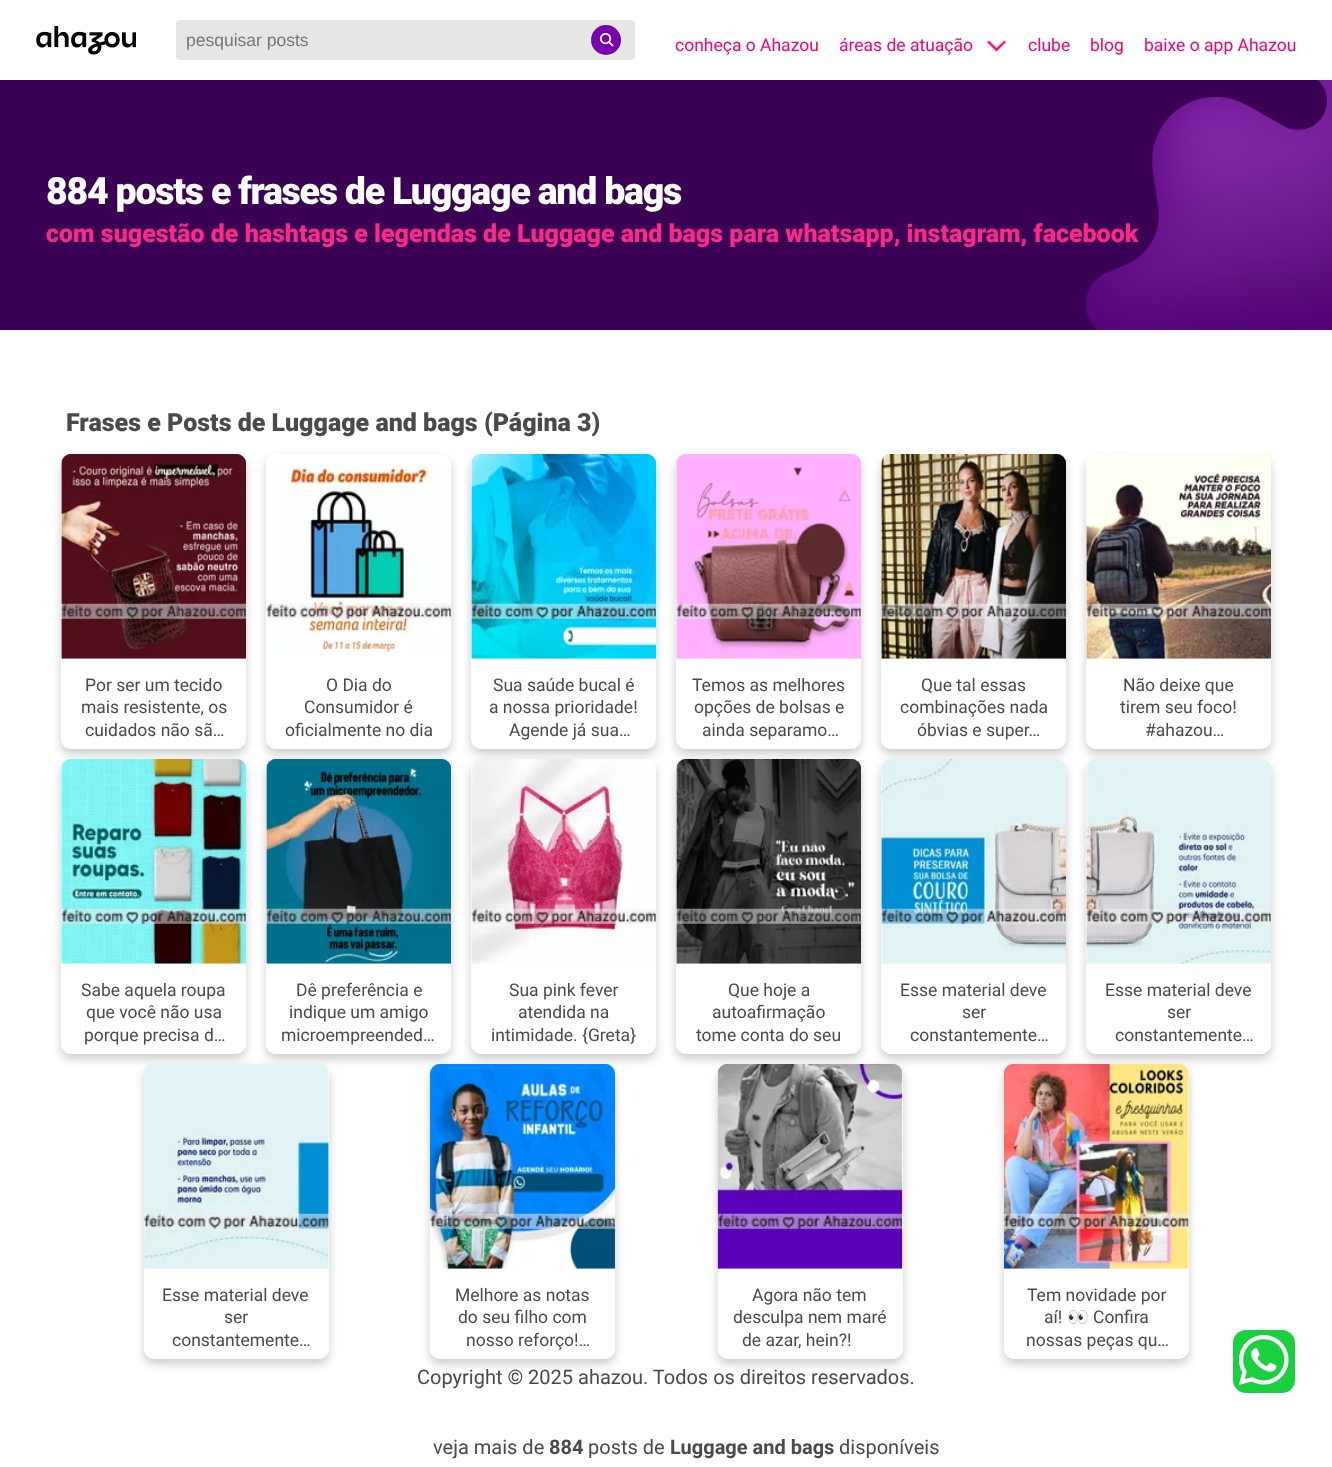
<svg xmlns="http://www.w3.org/2000/svg" width="1332" height="1467" viewBox="0 0 1332 1467">
  <defs>
    <clipPath id="clip1"><path d="M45 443H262V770H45ZM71 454H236C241.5 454 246 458.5 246 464V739C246 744.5 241.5 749 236 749H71C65.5 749 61 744.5 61 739V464C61 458.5 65.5 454 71 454Z" clip-rule="evenodd"/></clipPath>
    <filter id="blur1" x="-50%" y="-200%" width="200%" height="500%"><feGaussianBlur stdDeviation="5"/></filter>
    <clipPath id="clip2"><path d="M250 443H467V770H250ZM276 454H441C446.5 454 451 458.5 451 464V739C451 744.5 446.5 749 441 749H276C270.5 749 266 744.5 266 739V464C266 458.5 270.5 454 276 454Z" clip-rule="evenodd"/></clipPath>
    <clipPath id="clip3"><path d="M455 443H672V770H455ZM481 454H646C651.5 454 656 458.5 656 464V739C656 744.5 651.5 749 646 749H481C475.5 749 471 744.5 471 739V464C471 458.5 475.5 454 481 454Z" clip-rule="evenodd"/></clipPath>
    <clipPath id="clip4"><path d="M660 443H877V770H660ZM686 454H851C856.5 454 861 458.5 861 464V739C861 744.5 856.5 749 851 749H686C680.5 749 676 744.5 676 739V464C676 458.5 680.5 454 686 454Z" clip-rule="evenodd"/></clipPath>
    <clipPath id="clip5"><path d="M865 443H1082V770H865ZM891 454H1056C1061.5 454 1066 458.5 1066 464V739C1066 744.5 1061.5 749 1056 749H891C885.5 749 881 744.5 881 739V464C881 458.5 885.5 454 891 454Z" clip-rule="evenodd"/></clipPath>
    <clipPath id="clip6"><path d="M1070 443H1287V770H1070ZM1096 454H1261C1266.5 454 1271 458.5 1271 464V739C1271 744.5 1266.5 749 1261 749H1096C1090.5 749 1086 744.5 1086 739V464C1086 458.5 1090.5 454 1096 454Z" clip-rule="evenodd"/></clipPath>
    <clipPath id="clip7"><path d="M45 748H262V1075H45ZM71 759H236C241.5 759 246 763.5 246 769V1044C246 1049.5 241.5 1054 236 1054H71C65.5 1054 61 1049.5 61 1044V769C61 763.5 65.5 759 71 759Z" clip-rule="evenodd"/></clipPath>
    <clipPath id="clip8"><path d="M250 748H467V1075H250ZM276 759H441C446.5 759 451 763.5 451 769V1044C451 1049.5 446.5 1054 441 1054H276C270.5 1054 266 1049.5 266 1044V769C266 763.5 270.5 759 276 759Z" clip-rule="evenodd"/></clipPath>
    <clipPath id="clip9"><path d="M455 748H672V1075H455ZM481 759H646C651.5 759 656 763.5 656 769V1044C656 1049.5 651.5 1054 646 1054H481C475.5 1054 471 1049.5 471 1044V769C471 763.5 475.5 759 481 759Z" clip-rule="evenodd"/></clipPath>
    <clipPath id="clip10"><path d="M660 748H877V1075H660ZM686 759H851C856.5 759 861 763.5 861 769V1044C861 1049.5 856.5 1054 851 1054H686C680.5 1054 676 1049.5 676 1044V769C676 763.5 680.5 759 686 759Z" clip-rule="evenodd"/></clipPath>
    <clipPath id="clip11"><path d="M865 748H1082V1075H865ZM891 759H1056C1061.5 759 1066 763.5 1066 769V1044C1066 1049.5 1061.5 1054 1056 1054H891C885.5 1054 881 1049.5 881 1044V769C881 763.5 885.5 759 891 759Z" clip-rule="evenodd"/></clipPath>
    <clipPath id="clip12"><path d="M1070 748H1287V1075H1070ZM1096 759H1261C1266.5 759 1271 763.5 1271 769V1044C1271 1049.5 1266.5 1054 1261 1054H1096C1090.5 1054 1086 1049.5 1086 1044V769C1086 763.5 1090.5 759 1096 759Z" clip-rule="evenodd"/></clipPath>
    <clipPath id="clip13"><path d="M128 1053H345V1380H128ZM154 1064H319C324.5 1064 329 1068.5 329 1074V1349C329 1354.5 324.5 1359 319 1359H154C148.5 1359 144 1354.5 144 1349V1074C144 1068.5 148.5 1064 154 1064Z" clip-rule="evenodd"/></clipPath>
    <clipPath id="clip14"><path d="M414 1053H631V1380H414ZM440 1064H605C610.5 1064 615 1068.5 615 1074V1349C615 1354.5 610.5 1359 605 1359H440C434.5 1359 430 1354.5 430 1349V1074C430 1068.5 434.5 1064 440 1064Z" clip-rule="evenodd"/></clipPath>
    <clipPath id="clip15"><path d="M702 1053H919V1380H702ZM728 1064H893C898.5 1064 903 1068.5 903 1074V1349C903 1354.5 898.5 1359 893 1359H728C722.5 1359 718 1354.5 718 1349V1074C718 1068.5 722.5 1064 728 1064Z" clip-rule="evenodd"/></clipPath>
    <clipPath id="clip16"><path d="M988 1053H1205V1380H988ZM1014 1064H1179C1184.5 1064 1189 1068.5 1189 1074V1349C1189 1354.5 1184.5 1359 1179 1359H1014C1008.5 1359 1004 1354.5 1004 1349V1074C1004 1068.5 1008.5 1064 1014 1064Z" clip-rule="evenodd"/></clipPath>
  </defs>
  <rect width="100%" height="100%" fill="#ffffff"/>
  <image x="36" y="26" width="100" height="29" href="img1.png"/>
  <rect x="176" y="20" width="459" height="40" rx="4" fill="#e6e6e6"/>
  <text x="186" y="46" font-family="Liberation Sans" font-size="17.5" fill="#757575">pesquisar posts</text>
  <circle cx="606" cy="40" r="15" fill="#7900ad"/>
  <image x="599" y="33" width="15" height="14" href="img2.png"/>
  <text x="675" y="51" font-family="Roboto" font-size="17.5" fill="#f50072">conheça o Ahazou</text>
  <text x="839" y="51" font-family="Roboto" font-size="17.5" fill="#f50072">áreas de atuação</text>
  <path d="M989 40.5L987 42L996.5 51.5L1006 42L1004.5 40.5L996.5 48Z" fill="#ff0f7e"/>
  <text x="1028" y="51" font-family="Roboto" font-size="17.5" fill="#f50072">clube</text>
  <text x="1090" y="51" font-family="Roboto" font-size="17.5" fill="#f50072">blog</text>
  <text x="1144" y="51" font-family="Roboto" font-size="17.5" fill="#f50072">baixe o app Ahazou</text>
  <rect x="0" y="80" width="1328" height="250" fill="#3a0053"/>
  <image x="1086" y="80" width="246" height="250" href="img3.png"/>
  <text x="46" y="204" font-family="Roboto" font-size="37.5" font-weight="900" letter-spacing="-1.25" fill="#ffffff">884 posts e frases de Luggage and bags</text>
  <text x="46" y="242" font-family="Roboto" font-size="25" font-weight="900" fill="#ff278c">com sugestão de hashtags e legendas de Luggage and bags para whatsapp, instagram, facebook</text>
  <text x="66" y="431" font-family="Roboto" font-size="25" font-weight="900" fill="#4a4a4a">Frases e Posts de Luggage and bags (Página 3)</text>
  <g clip-path="url(#clip1)">
    <rect x="61" y="459" width="185" height="295" rx="10" fill="#000000" fill-opacity="0.2" filter="url(#blur1)"/>
  </g>
  <image x="61" y="454" width="185" height="205" href="img4.png"/>
  <text x="85" y="691" font-family="Roboto" font-size="17.5" fill="#4a4a4a">Por ser um tecido</text>
  <text x="81" y="713" font-family="Roboto" font-size="17.5" fill="#4a4a4a">mais resistente, os</text>
  <text x="85" y="736" font-family="Roboto" font-size="17.5" fill="#4a4a4a">cuidados não sã…</text>
  <g clip-path="url(#clip2)">
    <rect x="266" y="459" width="185" height="295" rx="10" fill="#000000" fill-opacity="0.2" filter="url(#blur1)"/>
  </g>
  <image x="266" y="463" width="185" height="191" href="img5.png"/>
  <text x="326" y="691" font-family="Roboto" font-size="17.5" fill="#4a4a4a">O Dia do</text>
  <text x="304" y="713" font-family="Roboto" font-size="17.5" fill="#4a4a4a">Consumidor é</text>
  <text x="285" y="736" font-family="Roboto" font-size="17.5" fill="#4a4a4a">oficialmente no dia</text>
  <g clip-path="url(#clip3)">
    <rect x="471" y="459" width="185" height="295" rx="10" fill="#000000" fill-opacity="0.2" filter="url(#blur1)"/>
  </g>
  <image x="471" y="454" width="185" height="205" href="img6.png"/>
  <text x="493" y="691" font-family="Roboto" font-size="17.5" fill="#4a4a4a">Sua saúde bucal é</text>
  <text x="489" y="713" font-family="Roboto" font-size="17.5" fill="#4a4a4a">a nossa prioridade!</text>
  <text x="509" y="736" font-family="Roboto" font-size="17.5" fill="#4a4a4a">Agende já sua…</text>
  <g clip-path="url(#clip4)">
    <rect x="676" y="459" width="185" height="295" rx="10" fill="#000000" fill-opacity="0.2" filter="url(#blur1)"/>
  </g>
  <image x="676" y="454" width="185" height="205" href="img7.png"/>
  <text x="692" y="691" font-family="Roboto" font-size="17.5" fill="#4a4a4a">Temos as melhores</text>
  <text x="694" y="713" font-family="Roboto" font-size="17.5" fill="#4a4a4a">opções de bolsas e</text>
  <text x="702" y="736" font-family="Roboto" font-size="17.5" fill="#4a4a4a">ainda separamo…</text>
  <g clip-path="url(#clip5)">
    <rect x="881" y="459" width="185" height="295" rx="10" fill="#000000" fill-opacity="0.2" filter="url(#blur1)"/>
  </g>
  <image x="881" y="454" width="185" height="205" href="img8.png"/>
  <text x="921" y="691" font-family="Roboto" font-size="17.5" fill="#4a4a4a">Que tal essas</text>
  <text x="900" y="713" font-family="Roboto" font-size="17.5" fill="#4a4a4a">combinações nada</text>
  <text x="917" y="736" font-family="Roboto" font-size="17.5" fill="#4a4a4a">óbvias e super…</text>
  <g clip-path="url(#clip6)">
    <rect x="1086" y="459" width="185" height="295" rx="10" fill="#000000" fill-opacity="0.2" filter="url(#blur1)"/>
  </g>
  <image x="1086" y="454" width="185" height="205" href="img9.png"/>
  <text x="1123" y="691" font-family="Roboto" font-size="17.5" fill="#4a4a4a">Não deixe que</text>
  <text x="1120" y="713" font-family="Roboto" font-size="17.5" fill="#4a4a4a">tirem seu foco!</text>
  <text x="1145" y="736" font-family="Roboto" font-size="17.5" fill="#4a4a4a">#ahazou…</text>
  <g clip-path="url(#clip7)">
    <rect x="61" y="764" width="185" height="295" rx="10" fill="#000000" fill-opacity="0.2" filter="url(#blur1)"/>
  </g>
  <image x="61" y="759" width="185" height="205" href="img10.png"/>
  <text x="81" y="996" font-family="Roboto" font-size="17.5" fill="#4a4a4a">Sabe aquela roupa</text>
  <text x="86" y="1018" font-family="Roboto" font-size="17.5" fill="#4a4a4a">que você não usa</text>
  <text x="84" y="1041" font-family="Roboto" font-size="17.5" fill="#4a4a4a">porque precisa d…</text>
  <g clip-path="url(#clip8)">
    <rect x="266" y="764" width="185" height="295" rx="10" fill="#000000" fill-opacity="0.2" filter="url(#blur1)"/>
  </g>
  <image x="266" y="759" width="185" height="205" href="img11.png"/>
  <text x="296" y="996" font-family="Roboto" font-size="17.5" fill="#4a4a4a">Dê preferência e</text>
  <text x="289" y="1018" font-family="Roboto" font-size="17.5" fill="#4a4a4a">indique um amigo</text>
  <text x="281" y="1041" font-family="Roboto" font-size="17.5" fill="#4a4a4a">microempreended…</text>
  <g clip-path="url(#clip9)">
    <rect x="471" y="764" width="185" height="295" rx="10" fill="#000000" fill-opacity="0.2" filter="url(#blur1)"/>
  </g>
  <image x="471" y="759" width="185" height="205" href="img12.png"/>
  <text x="509" y="996" font-family="Roboto" font-size="17.5" fill="#4a4a4a">Sua pink fever</text>
  <text x="518" y="1018" font-family="Roboto" font-size="17.5" fill="#4a4a4a">atendida na</text>
  <text x="491" y="1041" font-family="Roboto" font-size="17.5" fill="#4a4a4a">intimidade. {Greta}</text>
  <g clip-path="url(#clip10)">
    <rect x="676" y="764" width="185" height="295" rx="10" fill="#000000" fill-opacity="0.2" filter="url(#blur1)"/>
  </g>
  <image x="676" y="759" width="185" height="205" href="img13.png"/>
  <text x="728" y="996" font-family="Roboto" font-size="17.5" fill="#4a4a4a">Que hoje a</text>
  <text x="712" y="1018" font-family="Roboto" font-size="17.5" fill="#4a4a4a">autoafirmação</text>
  <text x="696" y="1041" font-family="Roboto" font-size="17.5" fill="#4a4a4a">tome conta do seu</text>
  <g clip-path="url(#clip11)">
    <rect x="881" y="764" width="185" height="295" rx="10" fill="#000000" fill-opacity="0.2" filter="url(#blur1)"/>
  </g>
  <image x="881" y="759" width="185" height="205" href="img14.png"/>
  <text x="900" y="996" font-family="Roboto" font-size="17.5" fill="#4a4a4a">Esse material deve</text>
  <text x="962" y="1018" font-family="Roboto" font-size="17.5" fill="#4a4a4a">ser</text>
  <text x="910" y="1041" font-family="Roboto" font-size="17.5" fill="#4a4a4a">constantemente…</text>
  <g clip-path="url(#clip12)">
    <rect x="1086" y="764" width="185" height="295" rx="10" fill="#000000" fill-opacity="0.2" filter="url(#blur1)"/>
  </g>
  <image x="1086" y="759" width="185" height="205" href="img15.png"/>
  <text x="1105" y="996" font-family="Roboto" font-size="17.5" fill="#4a4a4a">Esse material deve</text>
  <text x="1167" y="1018" font-family="Roboto" font-size="17.5" fill="#4a4a4a">ser</text>
  <text x="1115" y="1041" font-family="Roboto" font-size="17.5" fill="#4a4a4a">constantemente…</text>
  <g clip-path="url(#clip13)">
    <rect x="144" y="1069" width="185" height="295" rx="10" fill="#000000" fill-opacity="0.2" filter="url(#blur1)"/>
  </g>
  <image x="144" y="1064" width="185" height="205" href="img16.png"/>
  <text x="162" y="1301" font-family="Roboto" font-size="17.5" fill="#4a4a4a">Esse material deve</text>
  <text x="224" y="1323" font-family="Roboto" font-size="17.5" fill="#4a4a4a">ser</text>
  <text x="172" y="1346" font-family="Roboto" font-size="17.5" fill="#4a4a4a">constantemente…</text>
  <g clip-path="url(#clip14)">
    <rect x="430" y="1069" width="185" height="295" rx="10" fill="#000000" fill-opacity="0.2" filter="url(#blur1)"/>
  </g>
  <image x="430" y="1064" width="185" height="205" href="img17.png"/>
  <text x="455" y="1301" font-family="Roboto" font-size="17.5" fill="#4a4a4a">Melhore as notas</text>
  <text x="458" y="1323" font-family="Roboto" font-size="17.5" fill="#4a4a4a">do seu filho com</text>
  <text x="466" y="1346" font-family="Roboto" font-size="17.5" fill="#4a4a4a">nosso reforço!…</text>
  <g clip-path="url(#clip15)">
    <rect x="718" y="1069" width="185" height="295" rx="10" fill="#000000" fill-opacity="0.2" filter="url(#blur1)"/>
  </g>
  <image x="717" y="1064" width="186" height="205" href="img18.png"/>
  <text x="752" y="1301" font-family="Roboto" font-size="17.5" fill="#4a4a4a">Agora não tem</text>
  <text x="733" y="1323" font-family="Roboto" font-size="17.5" fill="#4a4a4a">desculpa nem maré</text>
  <text x="742" y="1346" font-family="Roboto" font-size="17.5" fill="#4a4a4a">de azar, hein?!</text>
  <g clip-path="url(#clip16)">
    <rect x="1004" y="1069" width="185" height="295" rx="10" fill="#000000" fill-opacity="0.2" filter="url(#blur1)"/>
  </g>
  <image x="1004" y="1064" width="185" height="205" href="img19.png"/>
  <text x="1027" y="1301" font-family="Roboto" font-size="17.5" fill="#4a4a4a">Tem novidade por</text>
  <text x="1044" y="1323" font-family="Roboto" font-size="17.5" fill="#4a4a4a">aí!</text>
  <text x="1067" y="1323" font-family="Noto Color Emoji" font-size="17.5" fill="#4a4a4a">👀</text>
  <text x="1093" y="1323" font-family="Roboto" font-size="17.5" fill="#4a4a4a">Confira</text>
  <text x="1026" y="1346" font-family="Roboto" font-size="17.5" fill="#4a4a4a">nossas peças qu…</text>
  <text x="417" y="1384" font-family="Roboto" font-size="20" fill="#4a4a4a">Copyright © 2025 ahazou. Todos os direitos reservados.</text>
  <text x="433" y="1454" font-family="Roboto" font-size="20" fill="#4a4a4a">veja mais de</text>
  <text x="549" y="1454" font-family="Roboto" font-size="20" font-weight="bold" fill="#4a4a4a">884</text>
  <text x="588" y="1454" font-family="Roboto" font-size="20" fill="#4a4a4a">posts de</text>
  <text x="670" y="1454" font-family="Roboto" font-size="20" font-weight="bold" fill="#4a4a4a">Luggage and bags</text>
  <text x="839" y="1454" font-family="Roboto" font-size="20" fill="#4a4a4a">disponíveis</text>
  <rect x="1233" y="1330" width="62" height="63" rx="13" fill="#1ad03f"/>
  <image x="1239" y="1335" width="50" height="50" href="img20.png"/>
</svg>
